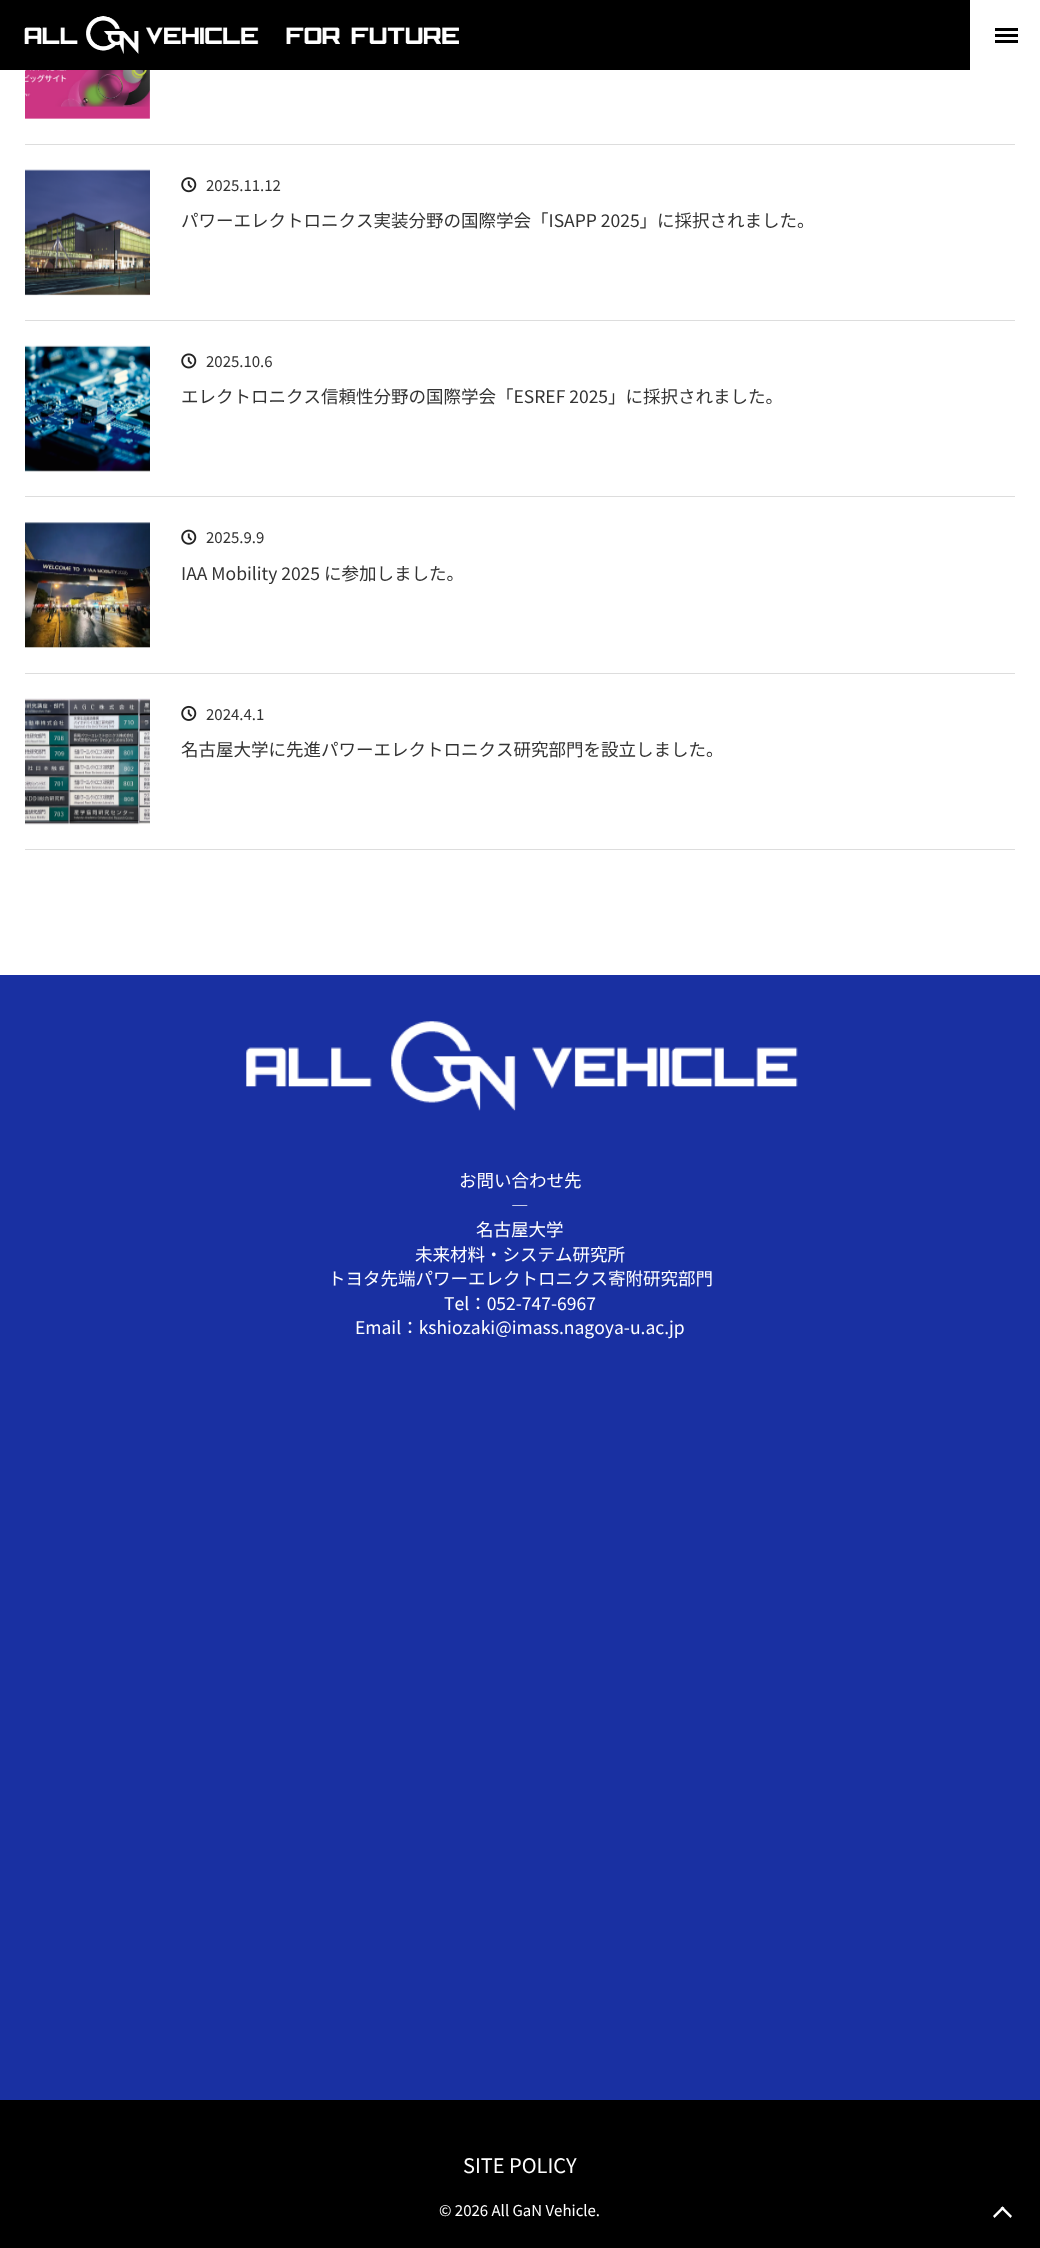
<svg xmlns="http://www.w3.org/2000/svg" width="1040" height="2248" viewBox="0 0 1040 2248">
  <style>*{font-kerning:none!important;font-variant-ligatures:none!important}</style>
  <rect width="100%" height="100%" fill="#ffffff"/>
  <rect x="0" y="0" width="970" height="70" fill="#000000"/>
  <image x="24" y="16" width="435" height="38" href="img1.png"/>
  <rect x="995" y="28" width="23" height="3" fill="#000000"/>
  <rect x="995" y="34" width="23" height="3" fill="#000000"/>
  <rect x="995" y="40" width="23" height="3" fill="#000000"/>
  <rect x="25" y="144" width="990" height="1" fill="#dddddd"/>
  <image x="25" y="70" width="125" height="49" href="img2.png"/>
  <rect x="25" y="320" width="990" height="1" fill="#dddddd"/>
  <image x="25" y="169" width="125" height="127" href="img3.png"/>
  <image x="181" y="177" width="16" height="16" href="img4.png"/>
  <text x="206" y="191" font-family="Noto Sans JP" font-size="15" fill="#333333">2025.11.12</text>
  <text x="181" y="227" font-family="Noto Sans JP" font-size="17.5" fill="#333333">パワーエレクトロニクス実装分野の国際学会「ISAPP 2025」に採択されました。</text>
  <rect x="25" y="496" width="990" height="1" fill="#dddddd"/>
  <image x="25" y="345" width="125" height="127" href="img5.png"/>
  <image x="181" y="353" width="16" height="16" href="img6.png"/>
  <text x="206" y="367" font-family="Noto Sans JP" font-size="15" fill="#333333">2025.10.6</text>
  <text x="181" y="403" font-family="Noto Sans JP" font-size="17.5" fill="#333333">エレクトロニクス信頼性分野の国際学会「ESREF 2025」に採択されました。</text>
  <rect x="25" y="673" width="990" height="1" fill="#dddddd"/>
  <image x="25" y="522" width="125" height="126" href="img7.png"/>
  <image x="181" y="529" width="16" height="16" href="img8.png"/>
  <text x="206" y="543" font-family="Noto Sans JP" font-size="15" fill="#333333">2025.9.9</text>
  <text x="181" y="580" font-family="Noto Sans JP" font-size="17.5" fill="#333333">IAA Mobility 2025 に参加しました。</text>
  <rect x="25" y="849" width="990" height="1" fill="#dddddd"/>
  <image x="25" y="698" width="125" height="127" href="img9.png"/>
  <image x="181" y="705" width="16" height="16" href="img10.png"/>
  <text x="206" y="720" font-family="Noto Sans JP" font-size="15" fill="#333333">2024.4.1</text>
  <text x="181" y="756" font-family="Noto Sans JP" font-size="17.5" fill="#333333">名古屋大学に先進パワーエレクトロニクス研究部門を設立しました。</text>
  <rect x="0" y="975" width="1040" height="1125" fill="#1930a2"/>
  <image x="246" y="1021" width="552" height="90" href="img11.png"/>
  <text x="459" y="1187" font-family="Noto Sans JP" font-size="17.5" fill="#ffffff">お問い合わせ先</text>
  <text x="511" y="1212" font-family="Noto Sans JP" font-size="17.5" fill="#ffffff">―</text>
  <text x="476" y="1236" font-family="Noto Sans JP" font-size="17.5" fill="#ffffff">名古屋大学</text>
  <text x="415" y="1261" font-family="Noto Sans JP" font-size="17.5" fill="#ffffff">未来材料・システム研究所</text>
  <text x="328" y="1285" font-family="Noto Sans JP" font-size="17.5" fill="#ffffff">トヨタ先端パワーエレクトロニクス寄附研究部門</text>
  <text x="444" y="1310" font-family="Noto Sans JP" font-size="17.5" fill="#ffffff">Tel：052-747-6967</text>
  <text x="355" y="1334" font-family="Noto Sans JP" font-size="17.5" fill="#ffffff">Email：kshiozaki@imass.nagoya-u.ac.jp</text>
  <rect x="0" y="2100" width="1040" height="148" fill="#000000"/>
  <text x="463" y="2173" font-family="Noto Sans JP" font-size="20" fill="#ffffff">SITE POLICY</text>
  <text x="439" y="2216" font-family="Noto Sans JP" font-size="15" fill="#ffffff">© 2026 All GaN Vehicle.</text>
  <path d="M993 2216L1002.5 2206.5L1004.5 2208L994.5 2218Z" fill="#ffffff"/>
  <path d="M1000.5 2208L1002.5 2206.5L1012 2216L1010.5 2218Z" fill="#ffffff"/>
</svg>
